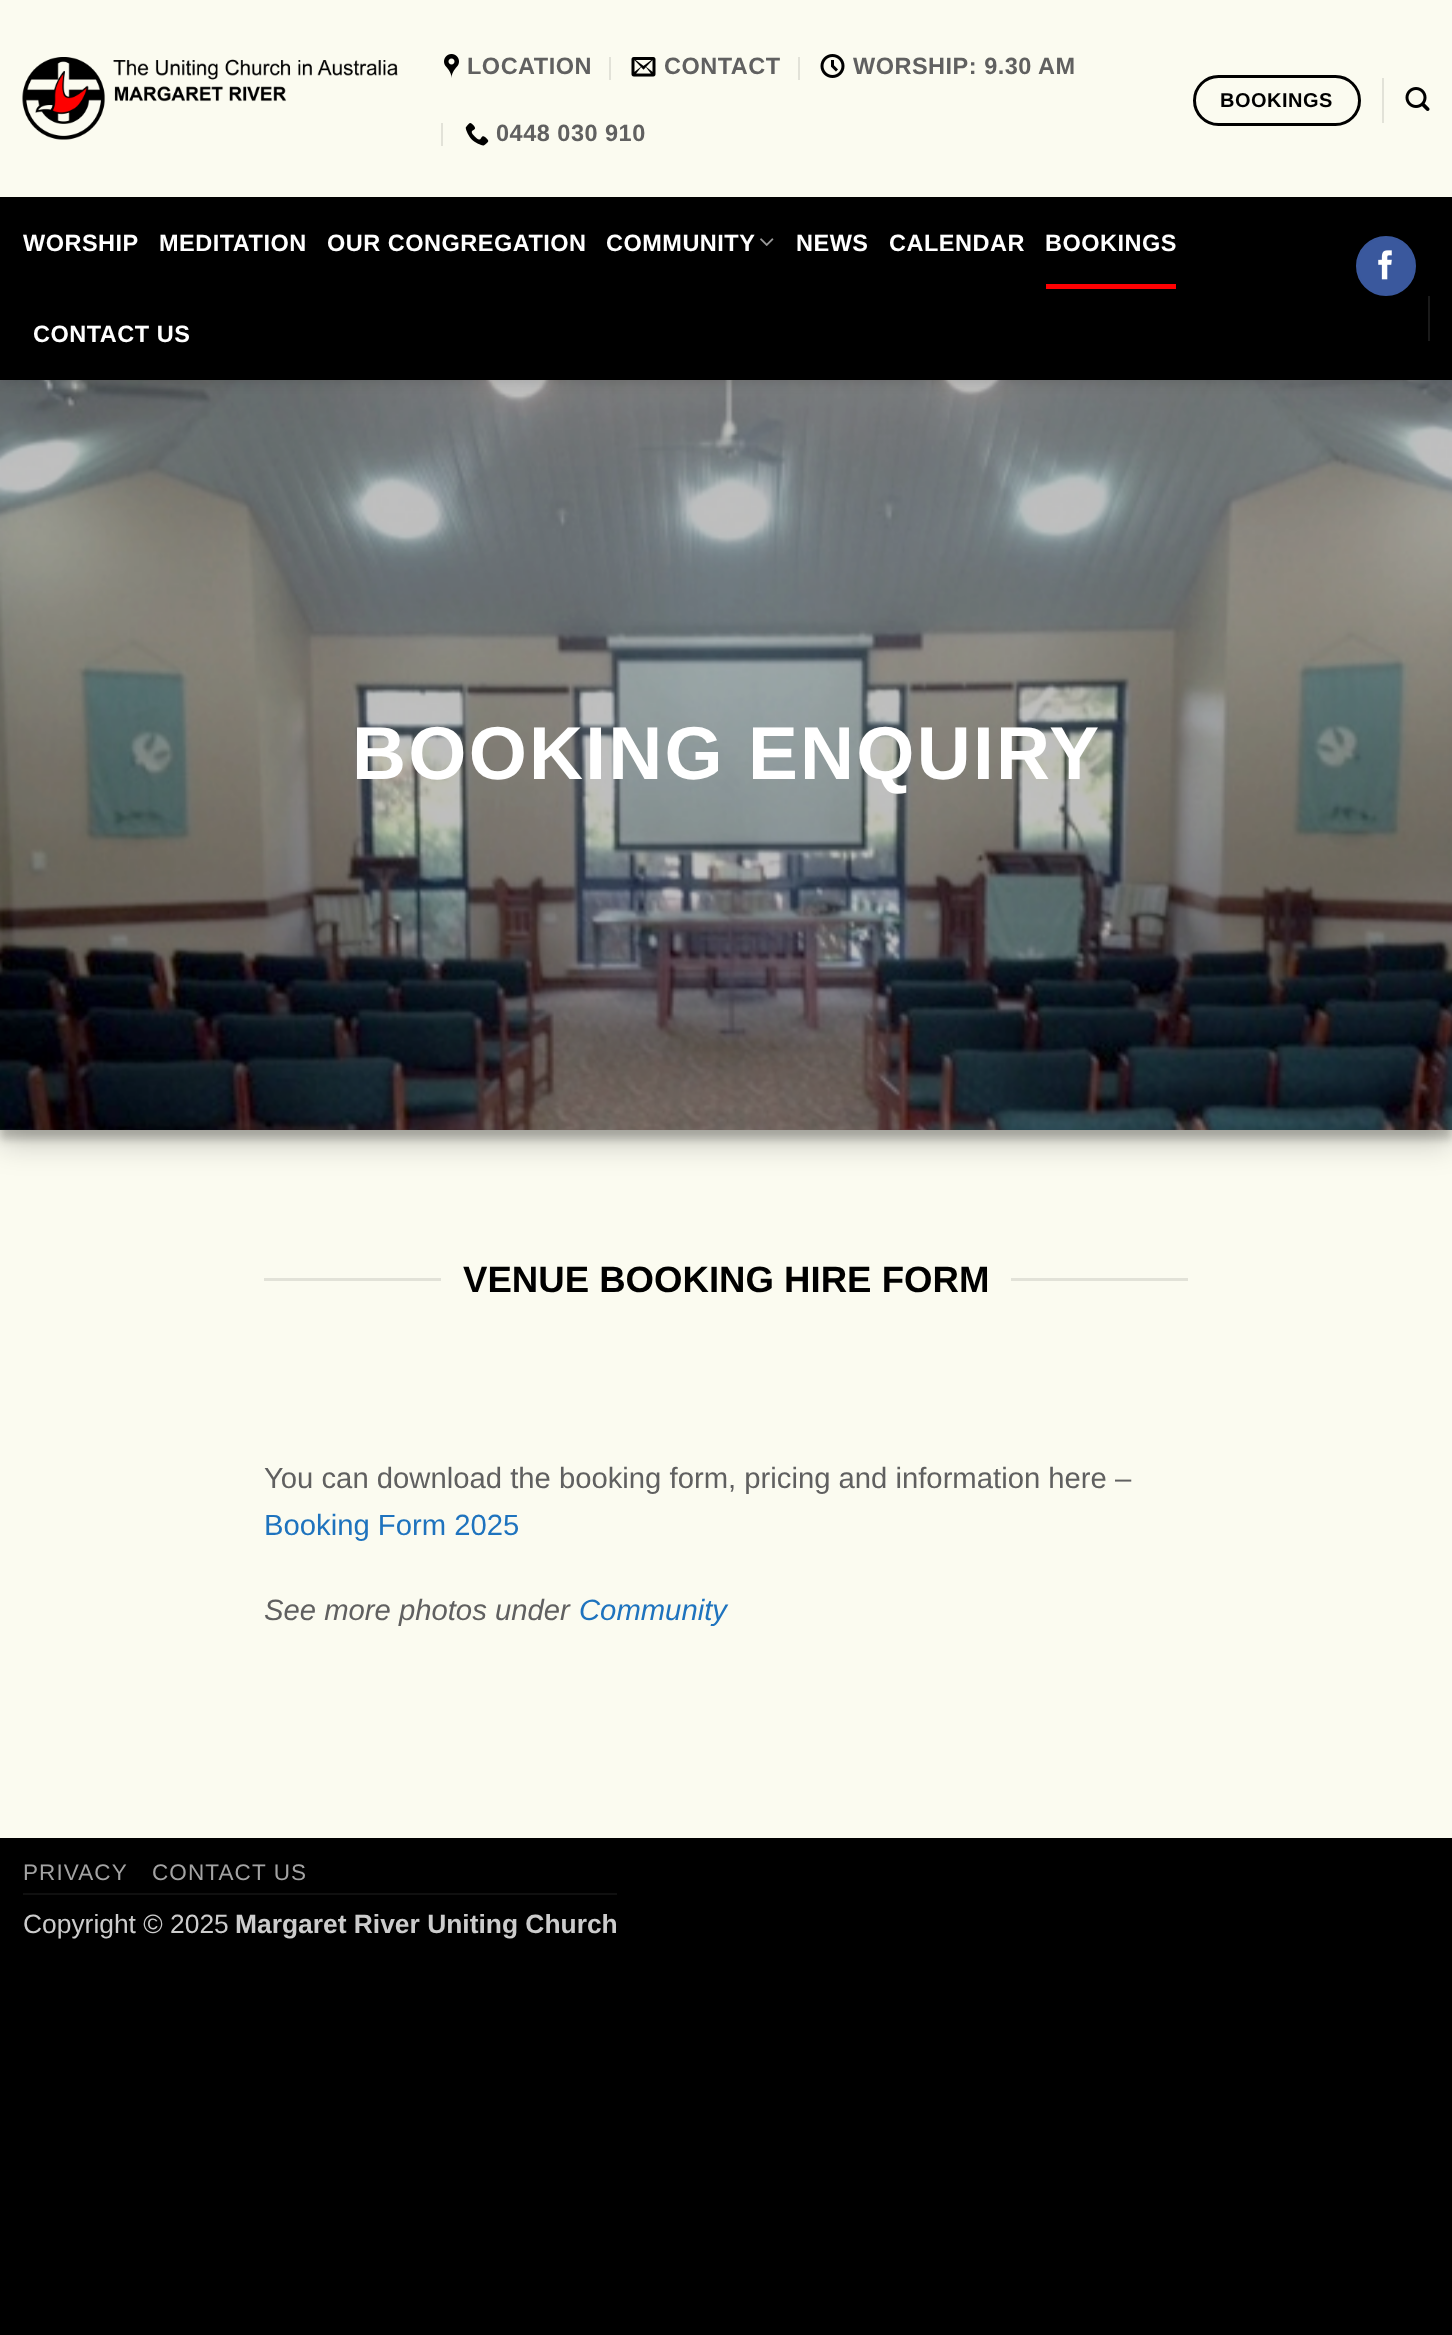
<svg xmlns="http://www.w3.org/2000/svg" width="1452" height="2335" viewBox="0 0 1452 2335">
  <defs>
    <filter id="blur1" x="-50%" y="-200%" width="200%" height="500%"><feGaussianBlur stdDeviation="4.5"/></filter>
    <filter id="blur2" x="-50%" y="-200%" width="200%" height="500%"><feGaussianBlur stdDeviation="15"/></filter>
    <filter id="blur3" x="-50%" y="-200%" width="200%" height="500%"><feGaussianBlur stdDeviation="7.5"/></filter>
  </defs>
  <rect width="100%" height="100%" fill="#000000"/>
  <rect x="0" y="1130" width="1452" height="708" fill="#fbfbf0"/>
  <rect x="0" y="389" width="1452" height="750" fill="#000000" fill-opacity="0.22" filter="url(#blur1)"/>
  <rect x="0" y="395" width="1452" height="750" fill="#000000" fill-opacity="0.19" filter="url(#blur2)"/>
  <image x="0" y="380" width="1452" height="750" href="img9.png"/>
  <rect x="2" y="2" width="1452" height="379" fill="#000000" fill-opacity="0.15" filter="url(#blur3)"/>
  <rect x="0" y="0" width="1452" height="197" fill="#fbfbf0"/>
  <image x="22" y="57" width="376" height="83" href="img1.png"/>
  <image x="444" y="54" width="15" height="24" href="img2.png"/>
  <text x="467" y="74" font-family="Liberation Sans" font-size="23.5" font-weight="bold" letter-spacing="0.5" fill="#606060">LOCATION</text>
  <rect x="609" y="57" width="2" height="23" fill="#e2e2d8"/>
  <image x="631" y="57" width="25" height="20" href="img3.png"/>
  <text x="664" y="74" font-family="Liberation Sans" font-size="23.5" font-weight="bold" letter-spacing="0.5" fill="#606060">CONTACT</text>
  <rect x="798" y="57" width="2" height="23" fill="#e2e2d8"/>
  <image x="820" y="54" width="25" height="24" href="img4.png"/>
  <text x="853" y="74" font-family="Liberation Sans" font-size="23.5" font-weight="bold" letter-spacing="0.5" fill="#606060">WORSHIP: 9.30 AM</text>
  <rect x="441" y="123" width="2" height="23" fill="#e2e2d8"/>
  <image x="465" y="123" width="24" height="23" href="img5.png"/>
  <text x="496" y="141" font-family="Liberation Sans" font-size="23.5" font-weight="bold" letter-spacing="0.5" fill="#606060">0448 030 910</text>
  <rect x="1194.5" y="76.5" width="165" height="48" rx="24" fill="none" stroke="#000000" stroke-width="3"/>
  <text x="1220" y="107" font-family="Liberation Sans" font-size="20" font-weight="bold" letter-spacing="0.5" fill="#000000">BOOKINGS</text>
  <rect x="1382" y="78" width="2" height="45" fill="#e2e2d8"/>
  <image x="1405" y="87" width="25" height="24" href="img6.png"/>
  <text x="23" y="251" font-family="Liberation Sans" font-size="23.5" font-weight="bold" letter-spacing="0.5" fill="#ffffff">WORSHIP</text>
  <text x="159" y="251" font-family="Liberation Sans" font-size="23.5" font-weight="bold" letter-spacing="0.5" fill="#ffffff">MEDITATION</text>
  <text x="327" y="251" font-family="Liberation Sans" font-size="23.5" font-weight="bold" letter-spacing="0.5" fill="#ffffff">OUR CONGREGATION</text>
  <text x="606" y="251" font-family="Liberation Sans" font-size="23.5" font-weight="bold" letter-spacing="0.5" fill="#ffffff">COMMUNITY</text>
  <image x="760" y="238" width="14" height="8" href="img7.png"/>
  <text x="796" y="251" font-family="Liberation Sans" font-size="23.5" font-weight="bold" letter-spacing="0.5" fill="#ffffff">NEWS</text>
  <text x="889" y="251" font-family="Liberation Sans" font-size="23.5" font-weight="bold" letter-spacing="0.5" fill="#ffffff">CALENDAR</text>
  <text x="1045" y="251" font-family="Liberation Sans" font-size="23.5" font-weight="bold" letter-spacing="0.5" fill="#ffffff">BOOKINGS</text>
  <rect x="1046" y="284" width="130" height="5" fill="#ff0102"/>
  <text x="33" y="342" font-family="Liberation Sans" font-size="23.5" font-weight="bold" letter-spacing="0.5" fill="#ffffff">CONTACT US</text>
  <circle cx="1386" cy="266" r="29" fill="#3a589d" stroke="#3a589d" stroke-width="2"/>
  <image x="1378" y="250" width="14" height="30" href="img8.png"/>
  <rect x="1428" y="296" width="2" height="45" fill="#1a1a1a"/>
  <text x="352" y="779" font-family="Liberation Sans" font-size="74.75" font-weight="bold" letter-spacing="2.25" fill="#ffffff">BOOKING ENQUIRY</text>
  <rect x="264" y="1278" width="177" height="3" fill="#e2e2d8"/>
  <text x="463" y="1292" font-family="Liberation Sans" font-size="36.6" font-weight="bold" fill="#000000">VENUE BOOKING HIRE FORM</text>
  <rect x="1011" y="1278" width="177" height="3" fill="#e2e2d8"/>
  <text x="264" y="1488" font-family="Liberation Sans" font-size="29.25" fill="#606060">You can download the booking form, pricing and information here –</text>
  <text x="264" y="1535" font-family="Liberation Sans" font-size="29.25" fill="#1e73be">Booking Form 2025</text>
  <text x="264" y="1620" font-family="Liberation Sans" font-size="29.25" font-style="italic" fill="#606060">See more photos under</text>
  <text x="579" y="1620" font-family="Liberation Sans" font-size="29.25" font-style="italic" fill="#1e73be">Community</text>
  <rect x="23" y="1893" width="594" height="2" fill="#101010"/>
  <text x="23" y="1880" font-family="Liberation Sans" font-size="22.5" letter-spacing="1.1" fill="#a3a3a3">PRIVACY</text>
  <text x="152" y="1880" font-family="Liberation Sans" font-size="22.5" letter-spacing="1.1" fill="#a3a3a3">CONTACT US</text>
  <text x="23" y="1933" font-family="Liberation Sans" font-size="26.4" fill="#cccccc">Copyright © 2025</text>
  <text x="235" y="1933" font-family="Liberation Sans" font-size="26.4" font-weight="bold" fill="#cccccc">Margaret River Uniting Church</text>
</svg>
